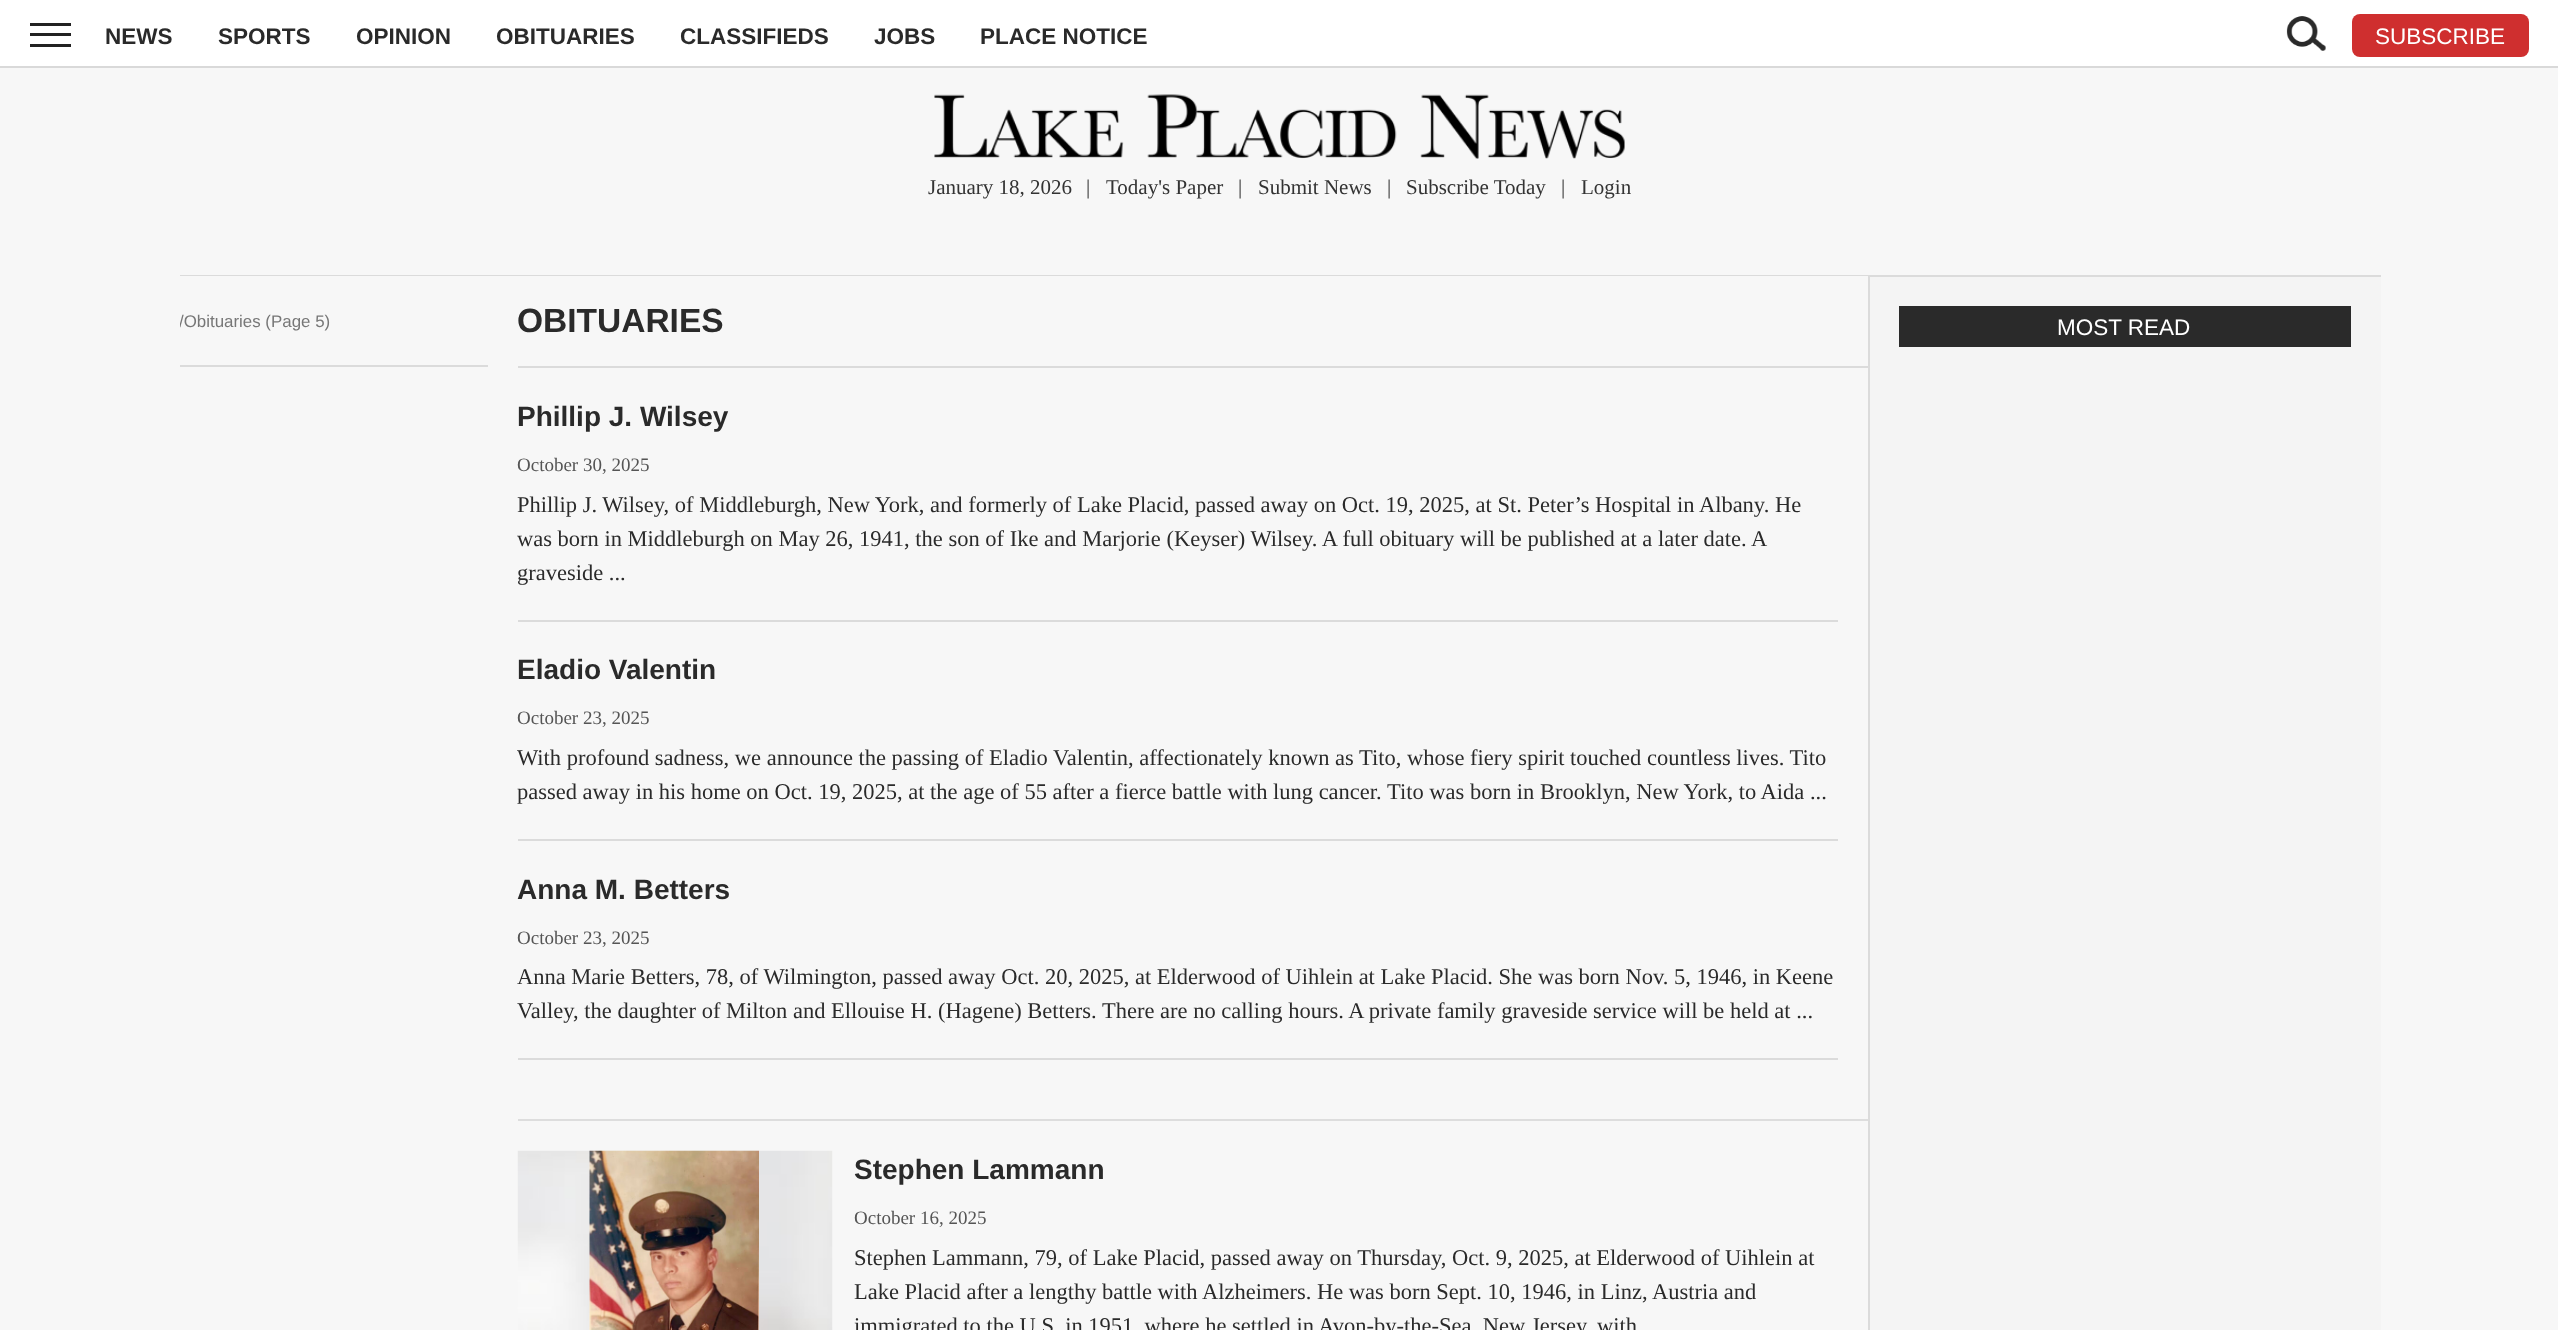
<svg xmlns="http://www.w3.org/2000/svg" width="2558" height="1330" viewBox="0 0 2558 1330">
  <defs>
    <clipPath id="clip1"><rect x="180" y="276" width="1688" height="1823"/></clipPath>
  </defs>
  <rect width="100%" height="100%" fill="#f7f7f7"/>
  <rect x="0" y="0" width="2558" height="66" fill="#ffffff"/>
  <rect x="0" y="66" width="2558" height="2" fill="#d9d9d9"/>
  <rect x="30" y="23" width="41" height="3" fill="#222222"/>
  <rect x="30" y="33" width="41" height="3" fill="#222222"/>
  <rect x="30" y="44" width="41" height="3" fill="#222222"/>
  <text x="105" y="44" font-family="Liberation Sans" font-size="22.5" font-weight="bold" fill="#2a2a2a">NEWS</text>
  <text x="218" y="44" font-family="Liberation Sans" font-size="22.5" font-weight="bold" fill="#2a2a2a">SPORTS</text>
  <text x="356" y="44" font-family="Liberation Sans" font-size="22.5" font-weight="bold" fill="#2a2a2a">OPINION</text>
  <text x="496" y="44" font-family="Liberation Sans" font-size="22.5" font-weight="bold" fill="#2a2a2a">OBITUARIES</text>
  <text x="680" y="44" font-family="Liberation Sans" font-size="22.5" font-weight="bold" fill="#2a2a2a">CLASSIFIEDS</text>
  <text x="874" y="44" font-family="Liberation Sans" font-size="22.5" font-weight="bold" fill="#2a2a2a">JOBS</text>
  <text x="980" y="44" font-family="Liberation Sans" font-size="22.5" font-weight="bold" fill="#2a2a2a">PLACE NOTICE</text>
  <image x="2286" y="16" width="40" height="35" href="img1.png"/>
  <rect x="2352" y="14" width="177" height="43" rx="8" fill="#cf2f2f"/>
  <text x="2375" y="44" font-family="Liberation Sans" font-size="22.5" fill="#ffffff">SUBSCRIBE</text>
  <image x="934" y="94" width="691" height="65" href="img2.png"/>
  <text x="928" y="194" font-family="Liberation Serif" font-size="21" fill="#333333">January 18, 2026</text>
  <text x="1086" y="194" font-family="Liberation Serif" font-size="21" fill="#333333">|</text>
  <text x="1106" y="194" font-family="Liberation Serif" font-size="21" fill="#333333">Today's Paper</text>
  <text x="1238" y="194" font-family="Liberation Serif" font-size="21" fill="#333333">|</text>
  <text x="1258" y="194" font-family="Liberation Serif" font-size="21" fill="#333333">Submit News</text>
  <text x="1387" y="194" font-family="Liberation Serif" font-size="21" fill="#333333">|</text>
  <text x="1406" y="194" font-family="Liberation Serif" font-size="21" fill="#333333">Subscribe Today</text>
  <text x="1561" y="194" font-family="Liberation Serif" font-size="21" fill="#333333">|</text>
  <text x="1581" y="194" font-family="Liberation Serif" font-size="21" fill="#333333">Login</text>
  <rect x="1870" y="277" width="511" height="1053" fill="#f4f4f4"/>
  <rect x="180" y="275" width="2201" height="2" fill="#dbdbdb"/>
  <rect x="180" y="276" width="1688" height="1" fill="#f7f7f7"/>
  <rect x="1868" y="276" width="2" height="1054" fill="#dbdbdb"/>
  <rect x="180" y="365" width="308" height="2" fill="#dbdbdb"/>
  <g clip-path="url(#clip1)">
    <text x="179" y="327" font-family="Liberation Sans" font-size="16.9" fill="#777777">/Obituaries (Page 5)</text>
  </g>
  <rect x="518" y="366" width="1350" height="2" fill="#dbdbdb"/>
  <text x="517" y="332" font-family="Liberation Sans" font-size="33.5" font-weight="bold" fill="#2a2a2a">OBITUARIES</text>
  <rect x="518" y="620" width="1320" height="2" fill="#dbdbdb"/>
  <text x="517" y="426" font-family="Liberation Sans" font-size="28" font-weight="bold" fill="#2a2a2a">Phillip J. Wilsey</text>
  <text x="517" y="471" font-family="Liberation Serif" font-size="19" fill="#555555">October 30, 2025</text>
  <text x="517" y="512" font-family="Liberation Serif" font-size="22.5" fill="#2a2a2a">Phillip J. Wilsey, of Middleburgh, New York, and formerly of Lake Placid, passed away on Oct. 19, 2025, at St. Peter’s Hospital in Albany. He</text>
  <text x="517" y="546" font-family="Liberation Serif" font-size="22.5" fill="#2a2a2a">was born in Middleburgh on May 26, 1941, the son of Ike and Marjorie (Keyser) Wilsey. A full obituary will be published at a later date. A</text>
  <text x="517" y="580" font-family="Liberation Serif" font-size="22.5" fill="#2a2a2a">graveside ...</text>
  <rect x="518" y="839" width="1320" height="2" fill="#dbdbdb"/>
  <text x="517" y="679" font-family="Liberation Sans" font-size="28" font-weight="bold" fill="#2a2a2a">Eladio Valentin</text>
  <text x="517" y="724" font-family="Liberation Serif" font-size="19" fill="#555555">October 23, 2025</text>
  <text x="517" y="765" font-family="Liberation Serif" font-size="22.5" fill="#2a2a2a">With profound sadness, we announce the passing of Eladio Valentin, affectionately known as Tito, whose fiery spirit touched countless lives. Tito</text>
  <text x="517" y="799" font-family="Liberation Serif" font-size="22.5" fill="#2a2a2a">passed away in his home on Oct. 19, 2025, at the age of 55 after a fierce battle with lung cancer.</text>
  <text x="1387" y="799" font-family="Liberation Serif" font-size="22.5" fill="#2a2a2a">Tito was born in Brooklyn, New York, to Aida ...</text>
  <rect x="518" y="1058" width="1320" height="2" fill="#dbdbdb"/>
  <text x="517" y="899" font-family="Liberation Sans" font-size="28" font-weight="bold" fill="#2a2a2a">Anna M. Betters</text>
  <text x="517" y="944" font-family="Liberation Serif" font-size="19" fill="#555555">October 23, 2025</text>
  <text x="517" y="984" font-family="Liberation Serif" font-size="22.5" fill="#2a2a2a">Anna Marie Betters, 78, of Wilmington, passed away Oct. 20, 2025, at Elderwood of Uihlein at Lake Placid. She was born Nov. 5, 1946, in Keene</text>
  <text x="517" y="1018" font-family="Liberation Serif" font-size="22.5" fill="#2a2a2a">Valley, the daughter of Milton and Ellouise H. (Hagene) Betters.</text>
  <text x="1102" y="1018" font-family="Liberation Serif" font-size="22.5" fill="#2a2a2a">There are no calling hours. A private family graveside service will be held at ...</text>
  <rect x="518" y="1119" width="1350" height="2" fill="#dddddd"/>
  <image x="517" y="1150" width="316" height="180" href="img3.png"/>
  <image x="589" y="1150" width="170" height="180" href="img4.png"/>
  <text x="854" y="1179" font-family="Liberation Sans" font-size="28" font-weight="bold" fill="#2a2a2a">Stephen Lammann</text>
  <text x="854" y="1224" font-family="Liberation Serif" font-size="19" fill="#555555">October 16, 2025</text>
  <text x="854" y="1265" font-family="Liberation Serif" font-size="22.5" fill="#2a2a2a">Stephen Lammann, 79, of Lake Placid, passed away on Thursday, Oct. 9, 2025, at Elderwood of Uihlein at</text>
  <text x="854" y="1299" font-family="Liberation Serif" font-size="22.5" fill="#2a2a2a">Lake Placid after a lengthy battle with Alzheimers. He was born Sept. 10, 1946, in Linz, Austria and</text>
  <text x="854" y="1333" font-family="Liberation Serif" font-size="22.5" fill="#2a2a2a">immigrated to the U.S. in 1951, where he settled in Avon-by-the-Sea, New Jersey, with</text>
  <rect x="1899" y="306" width="452" height="41" fill="#2a2a2a"/>
  <text x="2057" y="335" font-family="Liberation Sans" font-size="22.5" fill="#ffffff">MOST READ</text>
</svg>
